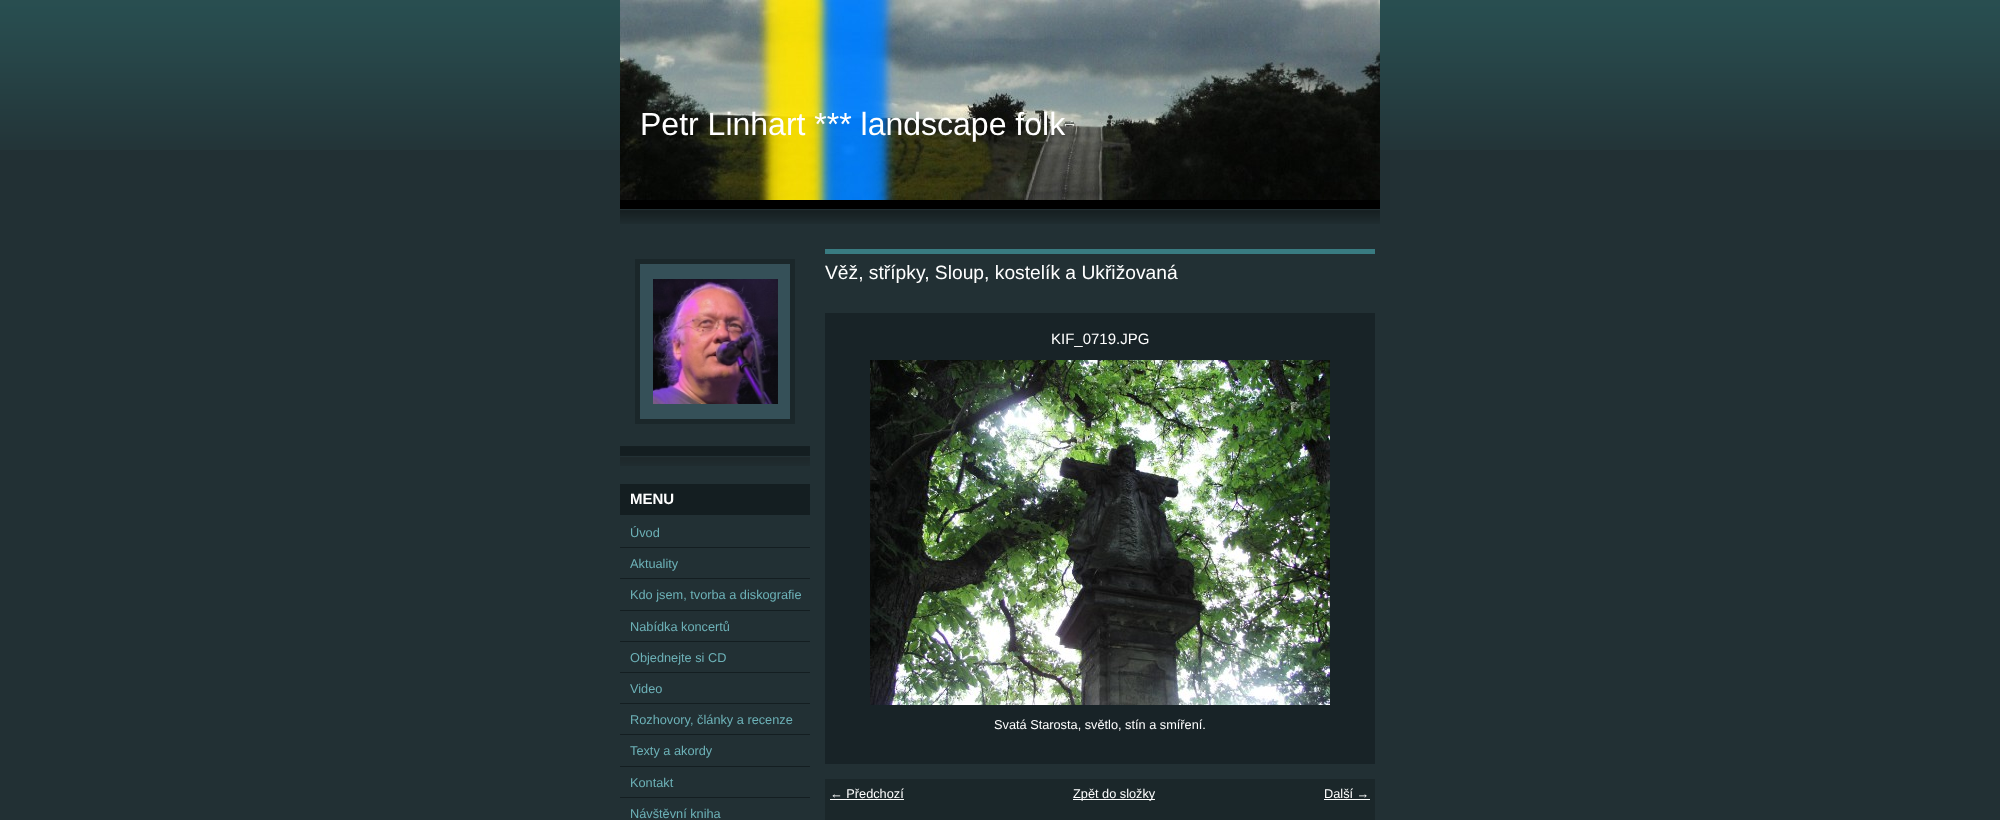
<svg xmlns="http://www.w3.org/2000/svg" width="2000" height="820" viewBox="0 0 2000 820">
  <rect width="100%" height="100%" fill="#223034"/>
  <image x="0" y="0" width="2000" height="150" href="img1.png"/>
  <image x="620" y="200" width="760" height="24" href="img2.png"/>
  <image x="620" y="0" width="760" height="200" href="img3.png"/>
  <text x="640" y="135" font-family="Liberation Sans" font-size="32" fill="#ffffff">Petr Linhart *** landscape folk</text>
  <image x="620" y="446" width="190" height="20" href="img4.png"/>
  <rect x="637.5" y="261.5" width="155" height="160" fill="#355058" stroke="#1b272a" stroke-width="5"/>
  <image x="653" y="279" width="125" height="125" href="img5.png"/>
  <rect x="620" y="484" width="190" height="31" fill="#141e21"/>
  <text x="630" y="504" font-family="Liberation Sans" font-size="15" font-weight="bold" fill="#ffffff">MENU</text>
  <rect x="620" y="547" width="190" height="1" fill="#141e21"/>
  <text x="630" y="537" font-family="Liberation Sans" font-size="12.75" fill="#6db2b8">Úvod</text>
  <rect x="620" y="578" width="190" height="1" fill="#141e21"/>
  <text x="630" y="568" font-family="Liberation Sans" font-size="12.75" fill="#6db2b8">Aktuality</text>
  <rect x="620" y="610" width="190" height="1" fill="#141e21"/>
  <text x="630" y="599" font-family="Liberation Sans" font-size="12.75" fill="#6db2b8">Kdo jsem, tvorba a diskografie</text>
  <rect x="620" y="641" width="190" height="1" fill="#141e21"/>
  <text x="630" y="631" font-family="Liberation Sans" font-size="12.75" fill="#6db2b8">Nabídka koncertů</text>
  <rect x="620" y="672" width="190" height="1" fill="#141e21"/>
  <text x="630" y="662" font-family="Liberation Sans" font-size="12.75" fill="#6db2b8">Objednejte si CD</text>
  <rect x="620" y="703" width="190" height="1" fill="#141e21"/>
  <text x="630" y="693" font-family="Liberation Sans" font-size="12.75" fill="#6db2b8">Video</text>
  <rect x="620" y="734" width="190" height="1" fill="#141e21"/>
  <text x="630" y="724" font-family="Liberation Sans" font-size="12.75" fill="#6db2b8">Rozhovory, články a recenze</text>
  <rect x="620" y="766" width="190" height="1" fill="#141e21"/>
  <text x="630" y="755" font-family="Liberation Sans" font-size="12.75" fill="#6db2b8">Texty a akordy</text>
  <rect x="620" y="797" width="190" height="1" fill="#141e21"/>
  <text x="630" y="787" font-family="Liberation Sans" font-size="12.75" fill="#6db2b8">Kontakt</text>
  <text x="630" y="818" font-family="Liberation Sans" font-size="12.75" fill="#6db2b8">Návštěvní kniha</text>
  <rect x="825" y="249" width="550" height="5" fill="#397b81"/>
  <text x="825" y="279" font-family="Liberation Sans" font-size="19.25" fill="#ffffff">Věž, střípky, Sloup, kostelík a Ukřižovaná</text>
  <rect x="825" y="313" width="550" height="451" fill="#182327"/>
  <text x="1051" y="344" font-family="Liberation Sans" font-size="15" fill="#ffffff">KIF_0719.JPG</text>
  <image x="870" y="360" width="460" height="345" href="img6.png"/>
  <text x="994" y="729" font-family="Liberation Sans" font-size="12.75" fill="#ffffff">Svatá Starosta, světlo, stín a smíření.</text>
  <rect x="825" y="779" width="550" height="41" fill="#1b272a"/>
  <text x="830" y="798" font-family="Liberation Sans" font-size="12.75" fill="#ffffff">← Předchozí</text>
  <rect x="830" y="799" width="74" height="1" fill="#ffffff"/>
  <rect x="1073" y="799" width="82" height="1" fill="#ffffff"/>
  <text x="1073" y="798" font-family="Liberation Sans" font-size="12.75" fill="#ffffff">Zpět do složky</text>
  <text x="1324" y="798" font-family="Liberation Sans" font-size="12.75" fill="#ffffff">Další →</text>
  <rect x="1324" y="799" width="46" height="1" fill="#ffffff"/>
</svg>
